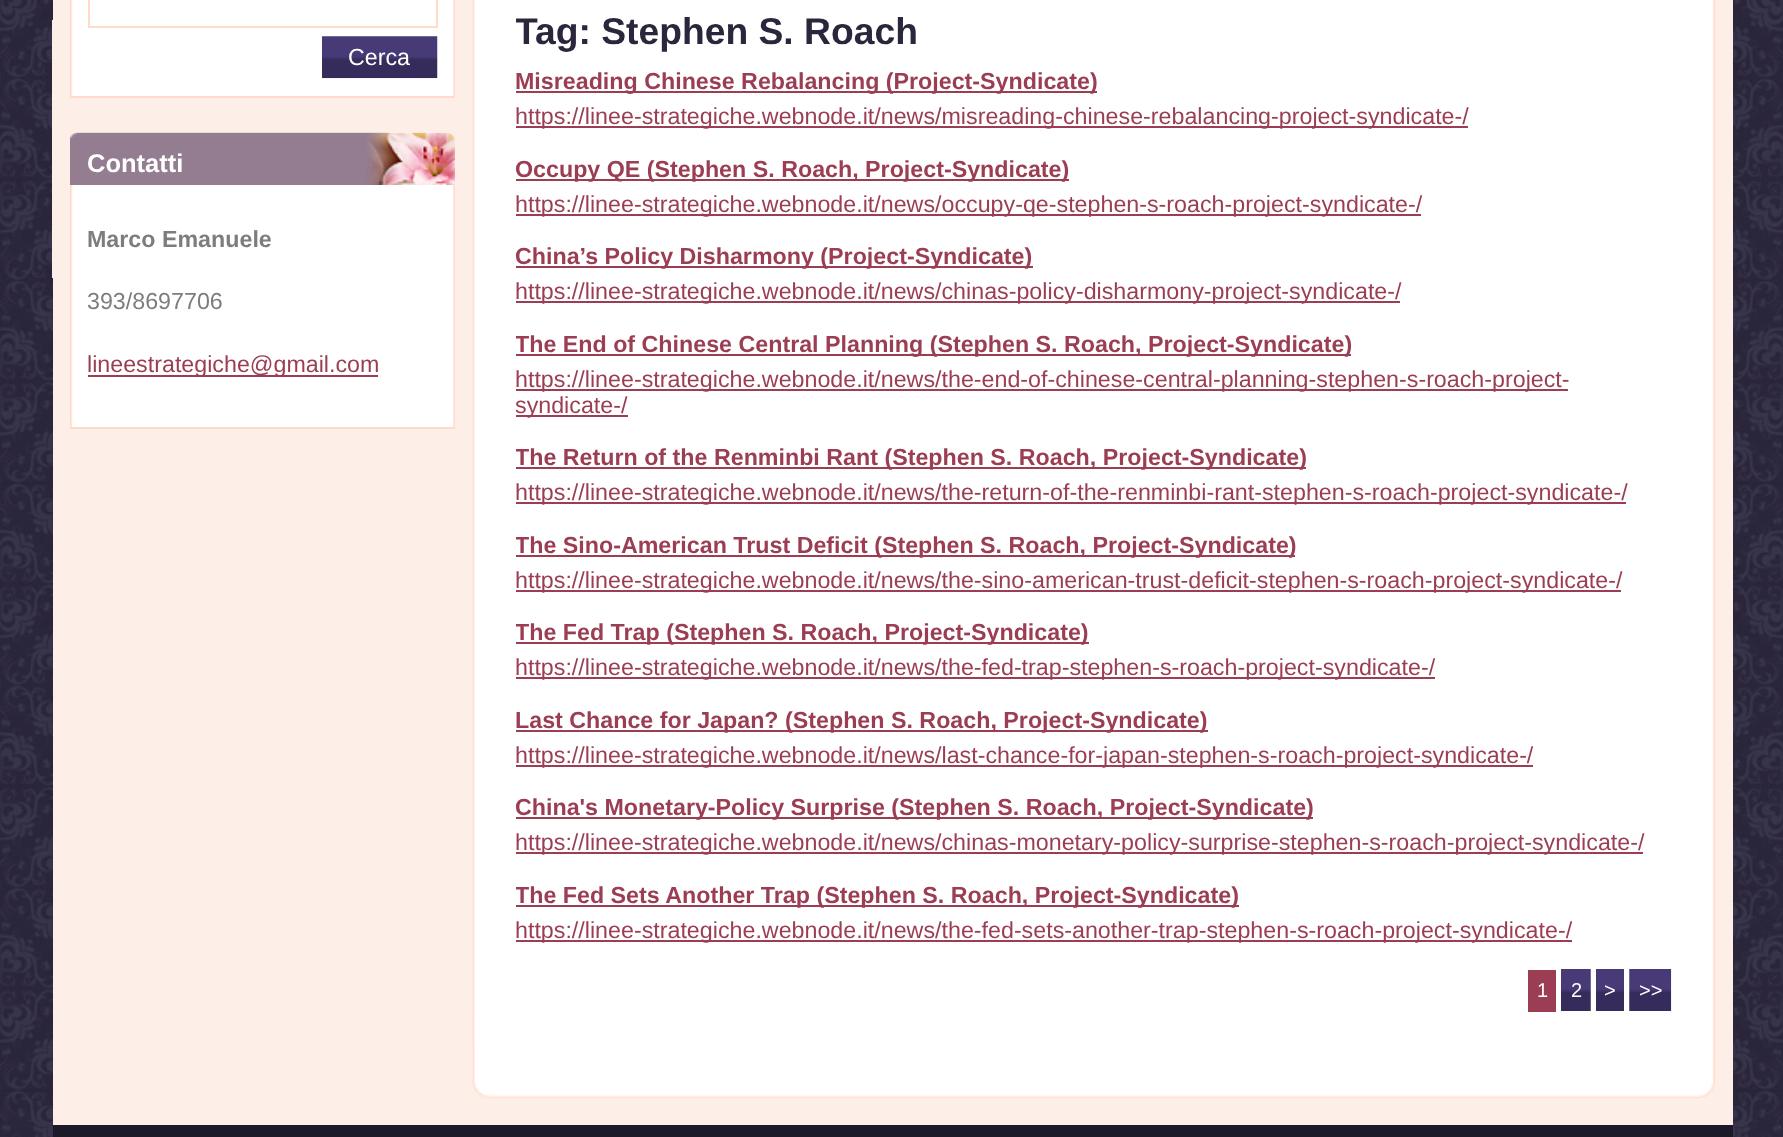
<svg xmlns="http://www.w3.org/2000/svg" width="1783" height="1137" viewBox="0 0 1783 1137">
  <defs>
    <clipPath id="clip1"><rect x="88" y="137" width="350" height="49"/></clipPath>
    <clipPath id="clip2"><rect x="88" y="221" width="350" height="189"/></clipPath>
    <clipPath id="clip3"><rect x="516" y="11" width="1155" height="1001"/></clipPath>
    <clipPath id="clip4"><rect x="516" y="68" width="1155" height="944"/></clipPath>
  </defs>
  <rect width="100%" height="100%" fill="#ffffff"/>
  <image x="0" y="0" width="1783" height="1137" href="img1.png"/>
  <rect x="52" y="20" width="1" height="258" fill="#fdefe7"/>
  <rect x="53" y="0" width="1680" height="1125" fill="#fdefe7"/>
  <image x="70" y="0" width="385" height="96" href="img2.png"/>
  <rect x="70" y="96" width="385" height="2" fill="#ffdcca"/>
  <rect x="89" y="-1" width="348" height="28" fill="none" stroke="#ffdcca" stroke-width="2"/>
  <image x="322" y="36" width="116" height="43" href="img3.png"/>
  <text x="348" y="65" font-family="Liberation Sans" font-size="23.25" fill="#ffffff">Cerca</text>
  <image x="70" y="132" width="385" height="295" href="img4.png"/>
  <rect x="70" y="427" width="385" height="2" fill="#ffdcca"/>
  <image x="70" y="132" width="385" height="53" href="img5.png"/>
  <g clip-path="url(#clip1)">
    <text x="87" y="172" font-family="Liberation Sans" font-size="25.5" font-weight="bold" fill="#ffffff">Contatti</text>
  </g>
  <text x="87" y="247" font-family="Liberation Sans" font-size="23.25" font-weight="bold" fill="#7d7d7d">Marco Emanuele</text>
  <g clip-path="url(#clip2)">
    <text x="87" y="309" font-family="Liberation Sans" font-size="23.25" fill="#7d7d7d">393/8697706</text>
  </g>
  <rect x="88" y="375" width="290" height="2" fill="#9b3e53"/>
  <text x="87" y="372" font-family="Liberation Sans" font-size="23.25" fill="#9b3e53">lineestrategiche@gmail.com</text>
  <image x="472" y="1011" width="1243" height="88" href="img6.png"/>
  <image x="472" y="0" width="1243" height="1046" href="img7.png"/>
  <g clip-path="url(#clip3)">
    <text x="515" y="44" font-family="Liberation Sans" font-size="37.25" font-weight="bold" fill="#2b263c">Tag: Stephen S. Roach</text>
  </g>
  <rect x="516" y="91" width="581" height="2" fill="#9b3e53"/>
  <text x="515" y="89" font-family="Liberation Sans" font-size="23.25" font-weight="bold" fill="#9b3e53">Misreading Chinese Rebalancing (Project-Syndicate)</text>
  <rect x="516" y="126" width="952" height="2" fill="#9b3e53"/>
  <text x="515" y="124" font-family="Liberation Sans" font-size="23.25" fill="#9b3e53">https://linee-strategiche.webnode.it/news/misreading-chinese-rebalancing-project-syndicate-/</text>
  <rect x="516" y="179" width="553" height="2" fill="#9b3e53"/>
  <text x="515" y="177" font-family="Liberation Sans" font-size="23.25" font-weight="bold" fill="#9b3e53">Occupy QE (Stephen S. Roach, Project-Syndicate)</text>
  <rect x="516" y="214" width="905" height="2" fill="#9b3e53"/>
  <text x="515" y="212" font-family="Liberation Sans" font-size="23.25" fill="#9b3e53">https://linee-strategiche.webnode.it/news/occupy-qe-stephen-s-roach-project-syndicate-/</text>
  <rect x="516" y="266" width="517" height="2" fill="#9b3e53"/>
  <text x="515" y="264" font-family="Liberation Sans" font-size="23.25" font-weight="bold" fill="#9b3e53">China’s Policy Disharmony (Project-Syndicate)</text>
  <rect x="516" y="301" width="884" height="2" fill="#9b3e53"/>
  <text x="515" y="299" font-family="Liberation Sans" font-size="23.25" fill="#9b3e53">https://linee-strategiche.webnode.it/news/chinas-policy-disharmony-project-syndicate-/</text>
  <rect x="516" y="354" width="835" height="2" fill="#9b3e53"/>
  <g clip-path="url(#clip4)">
    <text x="515" y="352" font-family="Liberation Sans" font-size="23.25" font-weight="bold" fill="#9b3e53">The End of Chinese Central Planning (Stephen S. Roach, Project-Syndicate)</text>
  </g>
  <rect x="516" y="389" width="1052" height="2" fill="#9b3e53"/>
  <text x="515" y="387" font-family="Liberation Sans" font-size="23.25" fill="#9b3e53">https://linee-strategiche.webnode.it/news/the-end-of-chinese-central-planning-stephen-s-roach-project-</text>
  <rect x="516" y="415" width="112" height="2" fill="#9b3e53"/>
  <text x="515" y="413" font-family="Liberation Sans" font-size="23.25" fill="#9b3e53">syndicate-/</text>
  <rect x="516" y="467" width="790" height="2" fill="#9b3e53"/>
  <g clip-path="url(#clip4)">
    <text x="515" y="465" font-family="Liberation Sans" font-size="23.25" font-weight="bold" fill="#9b3e53">The Return of the Renminbi Rant (Stephen S. Roach, Project-Syndicate)</text>
  </g>
  <rect x="516" y="502" width="1110" height="2" fill="#9b3e53"/>
  <text x="515" y="500" font-family="Liberation Sans" font-size="23.25" fill="#9b3e53">https://linee-strategiche.webnode.it/news/the-return-of-the-renminbi-rant-stephen-s-roach-project-syndicate-/</text>
  <rect x="516" y="555" width="779" height="2" fill="#9b3e53"/>
  <g clip-path="url(#clip4)">
    <text x="515" y="553" font-family="Liberation Sans" font-size="23.25" font-weight="bold" fill="#9b3e53">The Sino-American Trust Deficit (Stephen S. Roach, Project-Syndicate)</text>
  </g>
  <rect x="516" y="590" width="1105" height="2" fill="#9b3e53"/>
  <text x="515" y="588" font-family="Liberation Sans" font-size="23.25" fill="#9b3e53">https://linee-strategiche.webnode.it/news/the-sino-american-trust-deficit-stephen-s-roach-project-syndicate-/</text>
  <rect x="516" y="642" width="573" height="2" fill="#9b3e53"/>
  <g clip-path="url(#clip4)">
    <text x="515" y="640" font-family="Liberation Sans" font-size="23.25" font-weight="bold" fill="#9b3e53">The Fed Trap (Stephen S. Roach, Project-Syndicate)</text>
  </g>
  <rect x="516" y="677" width="919" height="2" fill="#9b3e53"/>
  <text x="515" y="675" font-family="Liberation Sans" font-size="23.25" fill="#9b3e53">https://linee-strategiche.webnode.it/news/the-fed-trap-stephen-s-roach-project-syndicate-/</text>
  <rect x="516" y="730" width="692" height="2" fill="#9b3e53"/>
  <text x="515" y="728" font-family="Liberation Sans" font-size="23.25" font-weight="bold" fill="#9b3e53">Last Chance for Japan? (Stephen S. Roach, Project-Syndicate)</text>
  <rect x="516" y="765" width="1017" height="2" fill="#9b3e53"/>
  <text x="515" y="763" font-family="Liberation Sans" font-size="23.25" fill="#9b3e53">https://linee-strategiche.webnode.it/news/last-chance-for-japan-stephen-s-roach-project-syndicate-/</text>
  <rect x="516" y="817" width="797" height="2" fill="#9b3e53"/>
  <text x="515" y="815" font-family="Liberation Sans" font-size="23.25" font-weight="bold" fill="#9b3e53">China's Monetary-Policy Surprise (Stephen S. Roach, Project-Syndicate)</text>
  <rect x="516" y="852" width="1127" height="2" fill="#9b3e53"/>
  <text x="515" y="850" font-family="Liberation Sans" font-size="23.25" fill="#9b3e53">https://linee-strategiche.webnode.it/news/chinas-monetary-policy-surprise-stephen-s-roach-project-syndicate-/</text>
  <rect x="516" y="905" width="723" height="2" fill="#9b3e53"/>
  <g clip-path="url(#clip4)">
    <text x="515" y="903" font-family="Liberation Sans" font-size="23.25" font-weight="bold" fill="#9b3e53">The Fed Sets Another Trap (Stephen S. Roach, Project-Syndicate)</text>
  </g>
  <rect x="516" y="940" width="1056" height="2" fill="#9b3e53"/>
  <text x="515" y="938" font-family="Liberation Sans" font-size="23.25" fill="#9b3e53">https://linee-strategiche.webnode.it/news/the-fed-sets-another-trap-stephen-s-roach-project-syndicate-/</text>
  <rect x="1528" y="970" width="28" height="42" fill="#9b3e53"/>
  <text x="1537" y="997" font-family="Liberation Sans" font-size="20" fill="#ffffff">1</text>
  <image x="1561" y="969" width="30" height="42" href="img8.png"/>
  <text x="1571" y="997" font-family="Liberation Sans" font-size="20" fill="#ffffff">2</text>
  <image x="1596" y="969" width="28" height="42" href="img9.png"/>
  <text x="1604" y="997" font-family="Liberation Sans" font-size="20" fill="#ffffff">&gt;</text>
  <image x="1629" y="969" width="43" height="42" href="img10.png"/>
  <text x="1639" y="997" font-family="Liberation Sans" font-size="20" fill="#ffffff">&gt;&gt;</text>
  <rect x="53" y="1125" width="1680" height="12" fill="#1c1a28"/>
</svg>
